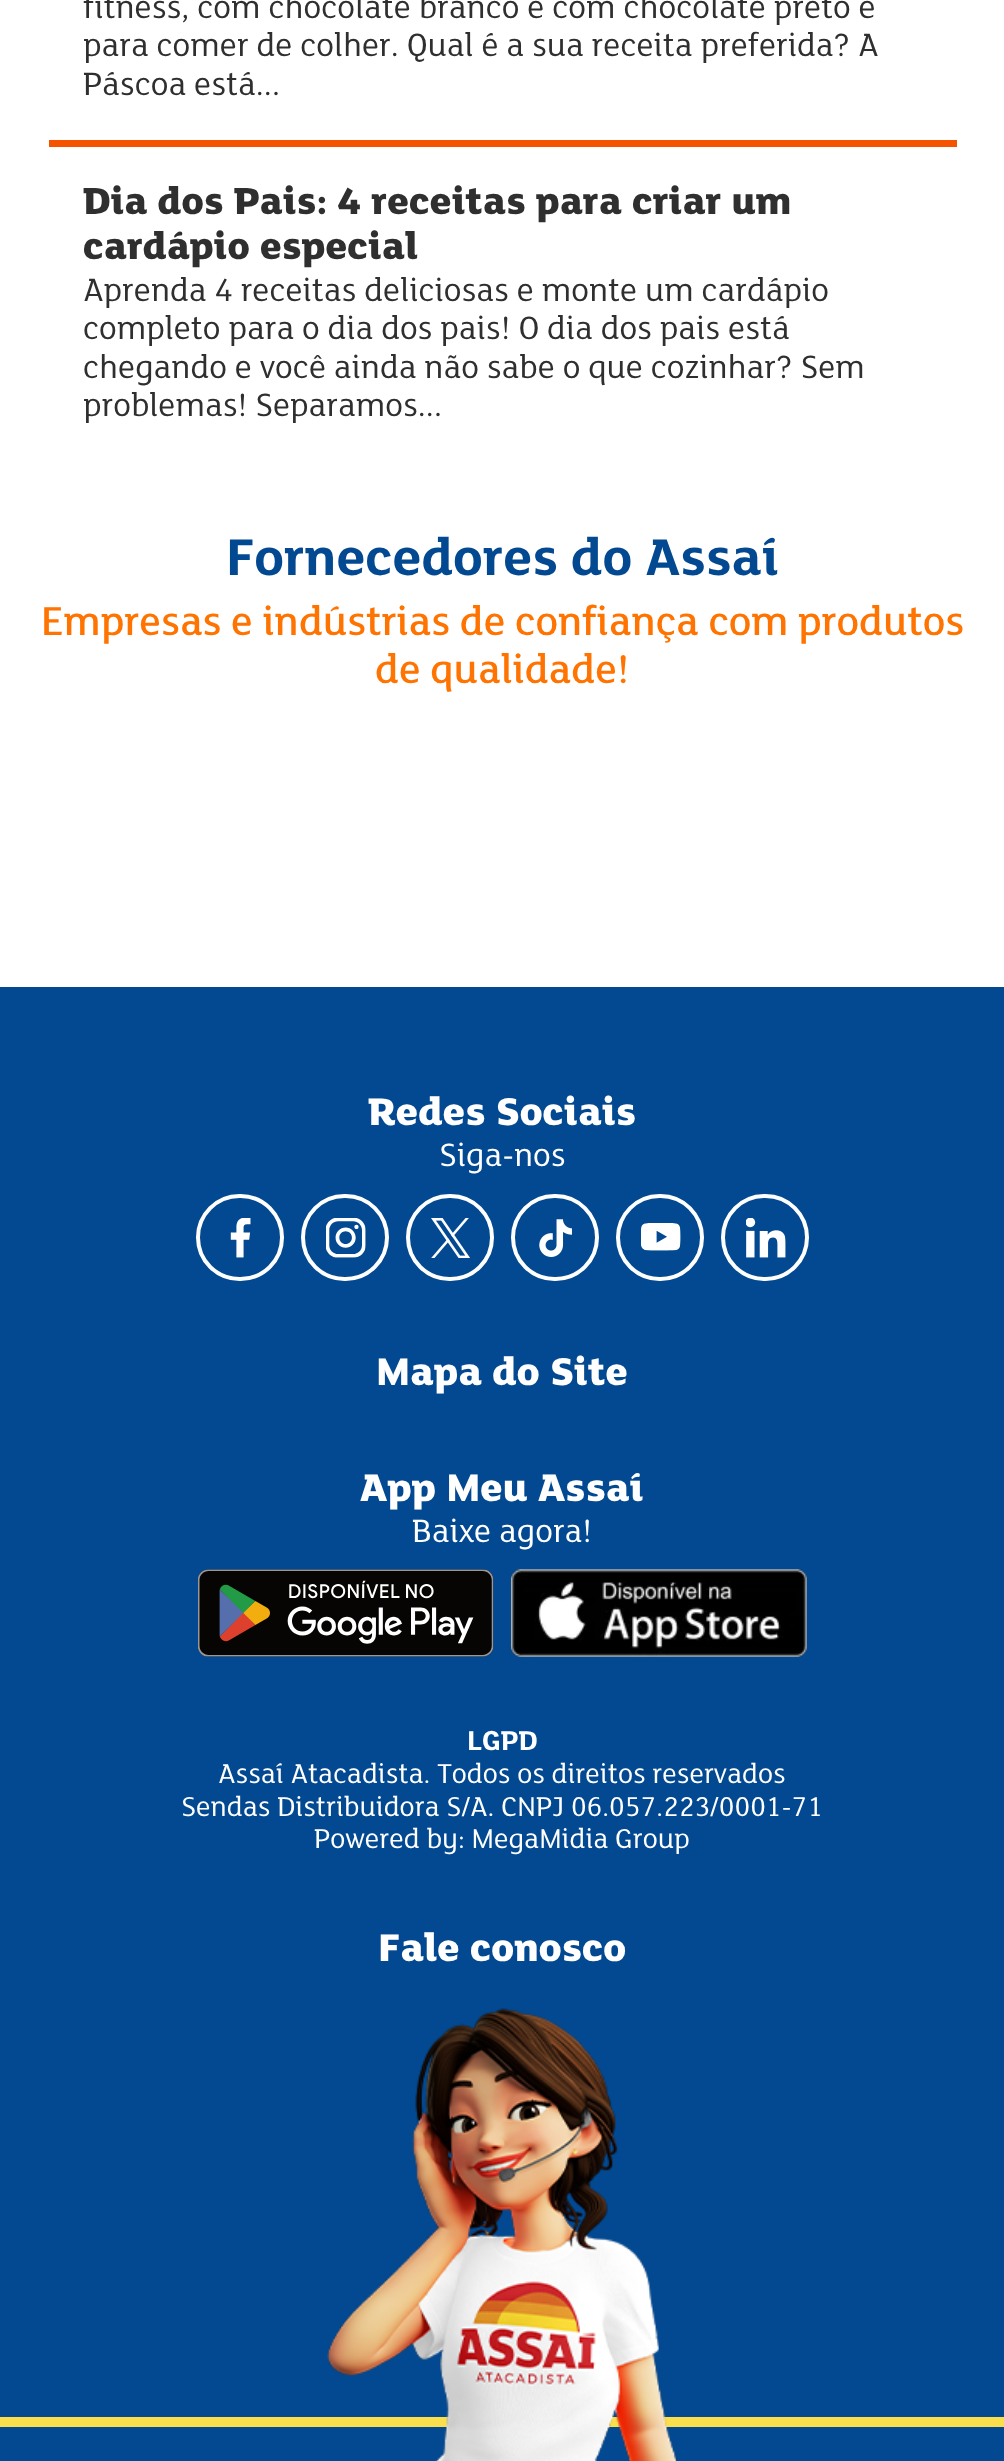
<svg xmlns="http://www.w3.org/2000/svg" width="1004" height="2461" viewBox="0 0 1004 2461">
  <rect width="100%" height="100%" fill="#ffffff"/>
  <rect x="49" y="140" width="908" height="7" fill="#f55300"/>
  <text x="83" y="18" font-family="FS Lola" font-size="35" fill="#2f2f2f">fitness, com chocolate branco e com chocolate preto e</text>
  <text x="83" y="56" font-family="FS Lola" font-size="35" fill="#2f2f2f">para comer de colher. Qual é a sua receita preferida? A</text>
  <text x="83" y="95" font-family="FS Lola" font-size="35" fill="#2f2f2f">Páscoa está...</text>
  <text x="83" y="214" font-family="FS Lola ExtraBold" font-size="41" font-weight="800" fill="#2f2f2f">Dia dos Pais: 4 receitas para criar um</text>
  <text x="83" y="259" font-family="FS Lola ExtraBold" font-size="41" font-weight="800" fill="#2f2f2f">cardápio especial</text>
  <text x="83" y="301" font-family="FS Lola" font-size="35" fill="#2f2f2f">Aprenda 4 receitas deliciosas e monte um cardápio</text>
  <text x="83" y="339" font-family="FS Lola" font-size="35" fill="#2f2f2f">completo para o dia dos pais! O dia dos pais está</text>
  <text x="83" y="378" font-family="FS Lola" font-size="35" fill="#2f2f2f">chegando e você ainda não sabe o que cozinhar? Sem</text>
  <text x="83" y="416" font-family="FS Lola" font-size="35" fill="#2f2f2f">problemas! Separamos...</text>
  <text x="226" y="575" font-family="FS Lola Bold" font-size="56" font-weight="bold" fill="#034991">Fornecedores do Assaí</text>
  <text x="41" y="635" font-family="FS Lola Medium" font-size="43.75" font-weight="500" fill="#ff7300">Empresas e indústrias de confiança com produtos</text>
  <text x="375" y="683" font-family="FS Lola Medium" font-size="43.75" font-weight="500" fill="#ff7300">de qualidade!</text>
  <rect x="0" y="987" width="1004" height="1474" fill="#034991"/>
  <text x="368" y="1125" font-family="FS Lola ExtraBold" font-size="42" font-weight="800" fill="#ffffff">Redes Sociais</text>
  <text x="439" y="1166" font-family="FS Lola" font-size="35" fill="#ffffff">Siga-nos</text>
  <rect x="198" y="1196" width="84" height="83" rx="41.5" fill="none" stroke="#ffffff" stroke-width="4"/>
  <image x="230" y="1218" width="21" height="40" href="img1.png"/>
  <rect x="303" y="1196" width="84" height="83" rx="41.5" fill="none" stroke="#ffffff" stroke-width="4"/>
  <image x="326" y="1218" width="40" height="40" href="img2.png"/>
  <rect x="408" y="1196" width="84" height="83" rx="41.5" fill="none" stroke="#ffffff" stroke-width="4"/>
  <image x="431" y="1218" width="39" height="40" href="img3.png"/>
  <rect x="513" y="1196" width="84" height="83" rx="41.5" fill="none" stroke="#ffffff" stroke-width="4"/>
  <image x="539" y="1219" width="33" height="38" href="img4.png"/>
  <rect x="618" y="1196" width="84" height="83" rx="41.5" fill="none" stroke="#ffffff" stroke-width="4"/>
  <image x="641" y="1223" width="40" height="28" href="img5.png"/>
  <rect x="723" y="1196" width="84" height="83" rx="41.5" fill="none" stroke="#ffffff" stroke-width="4"/>
  <image x="746" y="1218" width="40" height="40" href="img6.png"/>
  <text x="376" y="1385" font-family="FS Lola ExtraBold" font-size="42" font-weight="800" fill="#ffffff">Mapa do Site</text>
  <text x="360" y="1501" font-family="FS Lola ExtraBold" font-size="42" font-weight="800" fill="#ffffff">App Meu Assaí</text>
  <text x="412" y="1542" font-family="FS Lola" font-size="35" fill="#ffffff">Baixe agora!</text>
  <image x="198" y="1569" width="296" height="88" href="img7.png"/>
  <image x="511" y="1569" width="296" height="88" href="img8.png"/>
  <text x="467" y="1750" font-family="FS Lola Bold" font-size="29.75" font-weight="bold" fill="#ffffff">LGPD</text>
  <text x="218" y="1783" font-family="FS Lola" font-size="29.75" fill="#ffffff">Assaí Atacadista. Todos os direitos reservados</text>
  <text x="181" y="1816" font-family="FS Lola" font-size="29.75" fill="#ffffff">Sendas Distribuidora S/A. CNPJ 06.057.223/0001-71</text>
  <text x="314" y="1848" font-family="FS Lola" font-size="29.75" fill="#ffffff">Powered by: MegaMidia Group</text>
  <text x="378" y="1961" font-family="FS Lola ExtraBold" font-size="42" font-weight="800" fill="#ffffff">Fale conosco</text>
  <rect x="0" y="2417" width="1004" height="10" fill="#fade4b"/>
  <image x="327" y="2008" width="351" height="453" href="img9.png"/>
</svg>
